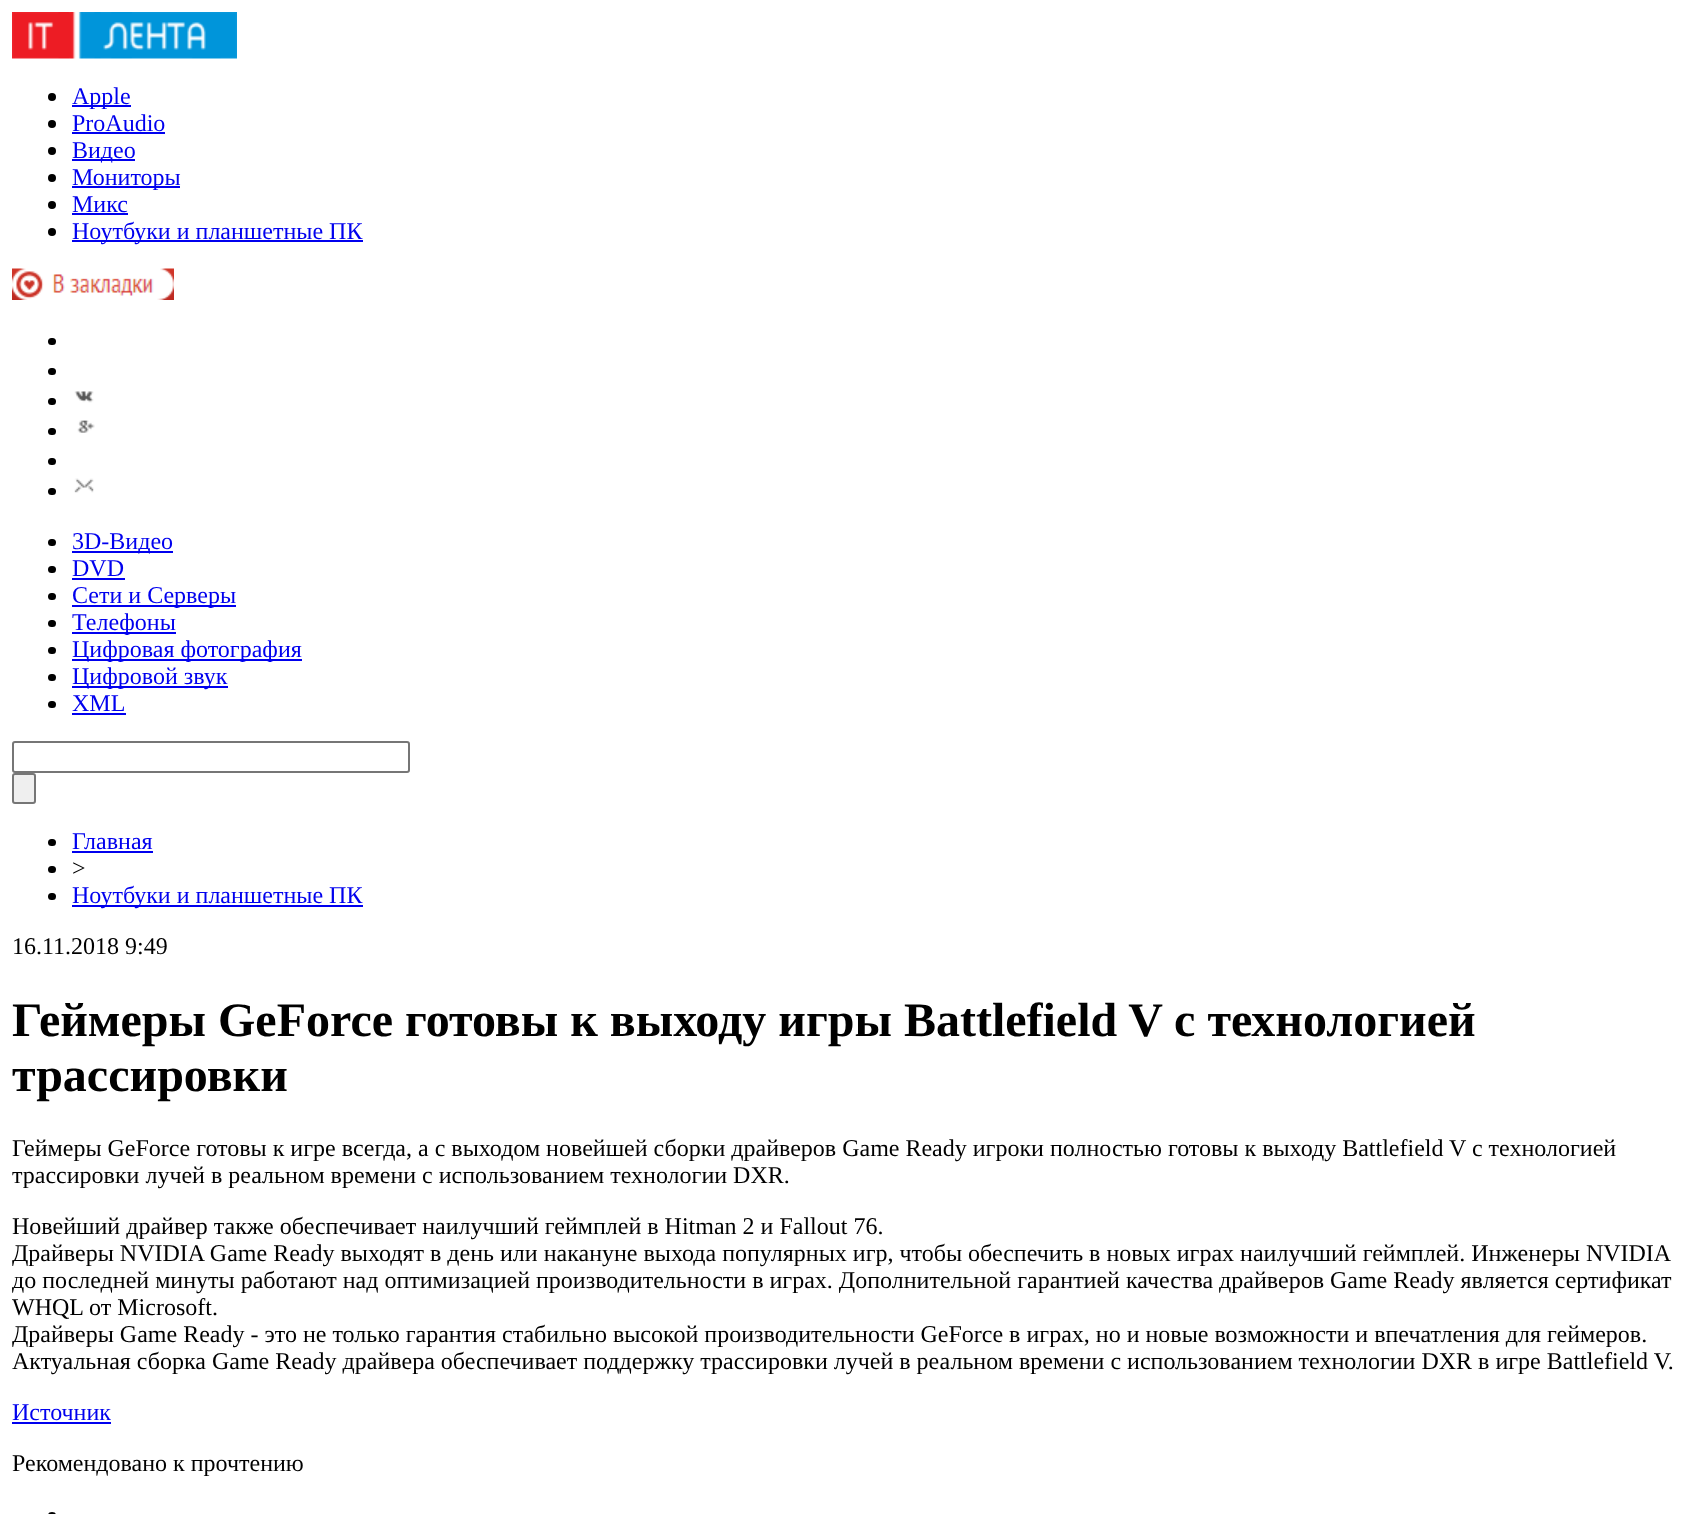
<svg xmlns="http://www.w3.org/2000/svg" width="1692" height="1514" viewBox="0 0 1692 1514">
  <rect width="100%" height="100%" fill="#ffffff"/>
  <image x="12" y="12" width="225" height="47" href="img1.png"/>
  <circle cx="52" cy="97" r="4" fill="#000000"/>
  <rect x="72" y="105" width="59" height="2" fill="#0000ee"/>
  <text x="72" y="104" font-family="Liberation Serif" font-size="24" fill="#0000ee">Apple</text>
  <circle cx="52" cy="124" r="4" fill="#000000"/>
  <text x="72" y="131" font-family="Liberation Serif" font-size="24" fill="#0000ee">ProAudio</text>
  <rect x="72" y="132" width="93" height="2" fill="#0000ee"/>
  <circle cx="52" cy="151" r="4" fill="#000000"/>
  <rect x="72" y="159" width="63" height="2" fill="#0000ee"/>
  <text x="72" y="158" font-family="Liberation Serif" font-size="24" fill="#0000ee">Видео</text>
  <circle cx="52" cy="178" r="4" fill="#000000"/>
  <rect x="72" y="186" width="108" height="2" fill="#0000ee"/>
  <text x="72" y="185" font-family="Liberation Serif" font-size="24" fill="#0000ee">Мониторы</text>
  <circle cx="52" cy="205" r="4" fill="#000000"/>
  <text x="72" y="212" font-family="Liberation Serif" font-size="24" fill="#0000ee">Микс</text>
  <rect x="72" y="213" width="56" height="2" fill="#0000ee"/>
  <circle cx="52" cy="232" r="4" fill="#000000"/>
  <rect x="72" y="240" width="291" height="2" fill="#0000ee"/>
  <text x="72" y="239" font-family="Liberation Serif" font-size="24" fill="#0000ee">Ноутбуки и планшетные ПК</text>
  <image x="12" y="268" width="162" height="32" href="img2.png"/>
  <rect x="48" y="338" width="8" height="7" rx="3.5" fill="#000000"/>
  <rect x="48" y="368" width="8" height="7" rx="3.5" fill="#000000"/>
  <rect x="48" y="398" width="8" height="7" rx="3.5" fill="#000000"/>
  <image x="74" y="391" width="20" height="12" href="img3.png"/>
  <rect x="48" y="428" width="8" height="7" rx="3.5" fill="#000000"/>
  <image x="77" y="420" width="18" height="13" href="img4.png"/>
  <rect x="48" y="458" width="8" height="7" rx="3.5" fill="#000000"/>
  <rect x="48" y="488" width="8" height="7" rx="3.5" fill="#000000"/>
  <image x="74" y="478" width="20" height="15" href="img5.png"/>
  <rect x="48" y="539" width="8" height="7" rx="3.5" fill="#000000"/>
  <rect x="72" y="551" width="101" height="2" fill="#0000ee"/>
  <text x="72" y="549" font-family="Liberation Serif" font-size="24" fill="#0000ee">3D-Видео</text>
  <rect x="48" y="566" width="8" height="7" rx="3.5" fill="#000000"/>
  <text x="72" y="576" font-family="Liberation Serif" font-size="24" fill="#0000ee">DVD</text>
  <rect x="72" y="578" width="53" height="2" fill="#0000ee"/>
  <rect x="48" y="593" width="8" height="7" rx="3.5" fill="#000000"/>
  <rect x="72" y="605" width="164" height="2" fill="#0000ee"/>
  <text x="72" y="603" font-family="Liberation Serif" font-size="24" fill="#0000ee">Сети и Серверы</text>
  <rect x="48" y="620" width="8" height="7" rx="3.5" fill="#000000"/>
  <rect x="72" y="632" width="104" height="2" fill="#0000ee"/>
  <text x="72" y="630" font-family="Liberation Serif" font-size="24" fill="#0000ee">Телефоны</text>
  <rect x="48" y="647" width="8" height="7" rx="3.5" fill="#000000"/>
  <rect x="72" y="659" width="230" height="2" fill="#0000ee"/>
  <text x="72" y="657" font-family="Liberation Serif" font-size="24" fill="#0000ee">Цифровая фотография</text>
  <rect x="48" y="674" width="8" height="7" rx="3.5" fill="#000000"/>
  <rect x="72" y="686" width="156" height="2" fill="#0000ee"/>
  <text x="72" y="684" font-family="Liberation Serif" font-size="24" fill="#0000ee">Цифровой звук</text>
  <rect x="48" y="701" width="8" height="7" rx="3.5" fill="#000000"/>
  <text x="72" y="711" font-family="Liberation Serif" font-size="24" fill="#0000ee">XML</text>
  <rect x="72" y="713" width="54" height="2" fill="#0000ee"/>
  <rect x="13" y="742" width="396" height="30" rx="2" fill="none" stroke="#767676" stroke-width="2"/>
  <rect x="13" y="774" width="22" height="29" rx="2" fill="#efefef" stroke="#767676" stroke-width="2"/>
  <rect x="48" y="839" width="8" height="7" rx="3.5" fill="#000000"/>
  <text x="72" y="849" font-family="Liberation Serif" font-size="24" fill="#0000ee">Главная</text>
  <rect x="72" y="851" width="81" height="2" fill="#0000ee"/>
  <rect x="48" y="866" width="8" height="7" rx="3.5" fill="#000000"/>
  <text x="72" y="876" font-family="Liberation Serif" font-size="24" fill="#000000">&gt;</text>
  <rect x="48" y="893" width="8" height="7" rx="3.5" fill="#000000"/>
  <rect x="72" y="905" width="291" height="2" fill="#0000ee"/>
  <text x="72" y="903" font-family="Liberation Serif" font-size="24" fill="#0000ee">Ноутбуки и планшетные ПК</text>
  <text x="12" y="954" font-family="Liberation Serif" font-size="24" fill="#000000">16.11.2018 9:49</text>
  <text x="12" y="1036" font-family="Liberation Serif" font-size="48" font-weight="bold" fill="#000000">Геймеры GeForce готовы к выходу игры Battlefield V с технологией</text>
  <text x="12" y="1091" font-family="Liberation Serif" font-size="48" font-weight="bold" fill="#000000">трассировки</text>
  <text x="12" y="1156" font-family="Liberation Serif" font-size="24" fill="#000000">Геймеры GeForce готовы к игре всегда, а с выходом новейшей сборки драйверов Game Ready игроки полностью готовы к выходу Battlefield V с технологией</text>
  <text x="12" y="1183" font-family="Liberation Serif" font-size="24" fill="#000000">трассировки лучей в реальном времени с использованием технологии DXR.</text>
  <text x="12" y="1234" font-family="Liberation Serif" font-size="24" fill="#000000">Новейший драйвер также обеспечивает наилучший геймплей в Hitman 2 и Fallout 76.</text>
  <text x="12" y="1261" font-family="Liberation Serif" font-size="24" fill="#000000">Драйверы NVIDIA Game Ready выходят в день или накануне выхода популярных игр, чтобы обеспечить в новых играх наилучший геймплей. Инженеры NVIDIA</text>
  <text x="12" y="1288" font-family="Liberation Serif" font-size="24" fill="#000000">до последней минуты работают над оптимизацией производительности в играх. Дополнительной гарантией качества драйверов Game Ready является сертификат</text>
  <text x="12" y="1315" font-family="Liberation Serif" font-size="24" fill="#000000">WHQL от Microsoft.</text>
  <text x="12" y="1342" font-family="Liberation Serif" font-size="24" fill="#000000">Драйверы Game Ready - это не только гарантия стабильно высокой производительности GeForce в играх, но и новые возможности и впечатления для геймеров.</text>
  <text x="12" y="1369" font-family="Liberation Serif" font-size="24" fill="#000000">Актуальная сборка Game Ready драйвера обеспечивает поддержку трассировки лучей в реальном времени с использованием технологии DXR в игре Battlefield V.</text>
  <text x="12" y="1420" font-family="Liberation Serif" font-size="24" fill="#0000ee">Источник</text>
  <rect x="12" y="1422" width="99" height="2" fill="#0000ee"/>
  <text x="12" y="1471" font-family="Liberation Serif" font-size="24" fill="#000000">Рекомендовано к прочтению</text>
  <rect x="48" y="1512" width="8" height="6" rx="4" fill="#000000"/>
</svg>
